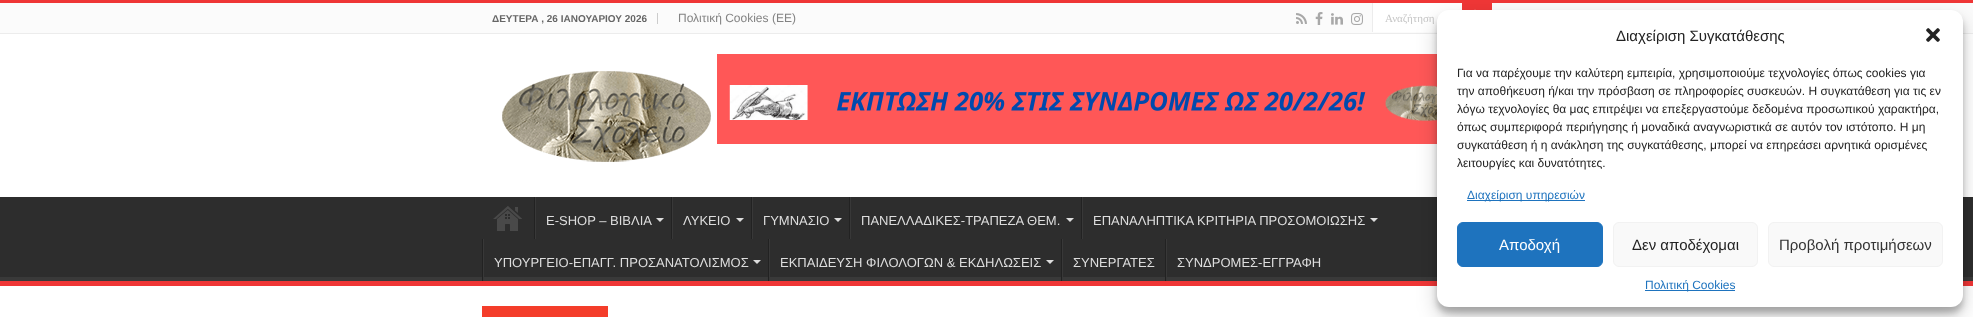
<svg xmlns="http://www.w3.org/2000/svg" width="1973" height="317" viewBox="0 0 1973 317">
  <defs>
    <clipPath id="clip1"><rect x="1385" y="12" width="65" height="12"/></clipPath>
    <clipPath id="clip2"><rect x="0" y="197" width="1973" height="84"/></clipPath>
    <filter id="blur1" x="-50%" y="-200%" width="200%" height="500%"><feGaussianBlur stdDeviation="3"/></filter>
    <filter id="blur2" x="-50%" y="-200%" width="200%" height="500%"><feGaussianBlur stdDeviation="10"/></filter>
  </defs>
  <rect width="100%" height="100%" fill="#ffffff"/>
  <rect x="0" y="0" width="1973" height="3" fill="#ef3636"/>
  <rect x="0" y="3" width="1973" height="30" fill="#fbfbfb"/>
  <rect x="0" y="33" width="1973" height="1" fill="#ececec"/>
  <rect x="657" y="13" width="1" height="11" fill="#cccccc"/>
  <text x="492" y="22" font-family="Liberation Sans" font-size="10" font-weight="bold" fill="#666666">ΔΕΥΤΕΡΑ , 26 ΙΑΝΟΥΑΡΙΟΥ 2026</text>
  <text x="678" y="22" font-family="Liberation Sans" font-size="12" fill="#838383">Πολιτική Cookies (ΕΕ)</text>
  <image x="1296" y="13" width="11" height="11" href="img1.png"/>
  <image x="1315" y="12" width="8" height="13" href="img2.png"/>
  <image x="1331" y="13" width="12" height="12" href="img3.png"/>
  <image x="1351" y="13" width="12" height="12" href="img4.png"/>
  <rect x="1462" y="3" width="30" height="7" fill="#ef3636"/>
  <image x="1474" y="9" width="2" height="1" href="img5.png"/>
  <rect x="1373" y="3" width="89" height="29" fill="#ffffff"/>
  <rect x="1372" y="3" width="1" height="29" fill="#ececec"/>
  <g clip-path="url(#clip1)">
    <text x="1385" y="22" font-family="Liberation Serif" font-size="11" fill="#c5c5c5">Αναζήτηση</text>
  </g>
  <image x="502" y="71" width="209" height="91" href="img6.png"/>
  <image x="717" y="54" width="720" height="90" href="img7.png"/>
  <rect x="0" y="197" width="1973" height="80" fill="#2d2d2d"/>
  <g clip-path="url(#clip2)">
    <path d="M-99 98H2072V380H-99ZM-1 191H1972C1973 191 1973 191 1973 192V276C1973 277 1973 277 1972 277H-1C-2 277-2 277-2 276V192C-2 191-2 191-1 191Z" fill="#393939" fill-rule="evenodd"/>
  </g>
  <rect x="0" y="281" width="1973" height="5" fill="#ef3636"/>
  <image x="493" y="206" width="29" height="25" href="img8.png"/>
  <rect x="534" y="197" width="1" height="42" fill="#222222"/>
  <rect x="535" y="197" width="1" height="42" fill="#383838"/>
  <text x="546" y="225" font-family="Liberation Sans" font-size="13" fill="#dddddd">E-SHOP – ΒΙΒΛΙΑ</text>
  <path d="M656 218H664L660 222Z" fill="#dddddd"/>
  <rect x="671" y="197" width="1" height="42" fill="#222222"/>
  <rect x="672" y="197" width="1" height="42" fill="#383838"/>
  <text x="683" y="225" font-family="Liberation Sans" font-size="13" fill="#dddddd">ΛΥΚΕΙΟ</text>
  <path d="M736 218H744L740 222Z" fill="#dddddd"/>
  <rect x="751" y="197" width="1" height="42" fill="#222222"/>
  <rect x="752" y="197" width="1" height="42" fill="#383838"/>
  <text x="763" y="225" font-family="Liberation Sans" font-size="13" fill="#dddddd">ΓΥΜΝΑΣΙΟ</text>
  <path d="M834 218H842L838 222Z" fill="#dddddd"/>
  <rect x="849" y="197" width="1" height="42" fill="#222222"/>
  <rect x="850" y="197" width="1" height="42" fill="#383838"/>
  <text x="861" y="225" font-family="Liberation Sans" font-size="13" fill="#dddddd">ΠΑΝΕΛΛΑΔΙΚΕΣ-ΤΡΑΠΕΖΑ ΘΕΜ.</text>
  <path d="M1066 218H1074L1070 222Z" fill="#dddddd"/>
  <rect x="1081" y="197" width="1" height="42" fill="#222222"/>
  <rect x="1082" y="197" width="1" height="42" fill="#383838"/>
  <text x="1093" y="225" font-family="Liberation Sans" font-size="13" fill="#dddddd">ΕΠΑΝΑΛΗΠΤΙΚΑ ΚΡΙΤΗΡΙΑ ΠΡΟΣΟΜΟΙΩΣΗΣ</text>
  <path d="M1370 218H1378L1374 222Z" fill="#dddddd"/>
  <rect x="482" y="239" width="1" height="42" fill="#222222"/>
  <rect x="483" y="239" width="1" height="42" fill="#383838"/>
  <text x="494" y="267" font-family="Liberation Sans" font-size="13" fill="#dddddd">ΥΠΟΥΡΓΕΙΟ-ΕΠΑΓΓ. ΠΡΟΣΑΝΑΤΟΛΙΣΜΟΣ</text>
  <path d="M753 260H761L757 264Z" fill="#dddddd"/>
  <rect x="768" y="239" width="1" height="42" fill="#222222"/>
  <rect x="769" y="239" width="1" height="42" fill="#383838"/>
  <text x="780" y="267" font-family="Liberation Sans" font-size="13" fill="#dddddd">ΕΚΠΑΙΔΕΥΣΗ ΦΙΛΟΛΟΓΩΝ &amp; ΕΚΔΗΛΩΣΕΙΣ</text>
  <path d="M1046 260H1054L1050 264Z" fill="#dddddd"/>
  <rect x="1061" y="239" width="1" height="42" fill="#222222"/>
  <rect x="1062" y="239" width="1" height="42" fill="#383838"/>
  <text x="1073" y="267" font-family="Liberation Sans" font-size="13" fill="#dddddd">ΣΥΝΕΡΓΑΤΕΣ</text>
  <rect x="1165" y="239" width="1" height="42" fill="#222222"/>
  <rect x="1166" y="239" width="1" height="42" fill="#383838"/>
  <text x="1177" y="267" font-family="Liberation Sans" font-size="13" fill="#dddddd">ΣΥΝΔΡΟΜΕΣ-ΕΓΓΡΑΦΗ</text>
  <rect x="482" y="306" width="126" height="11" fill="#f43d2a"/>
  <rect x="1437" y="16" width="526" height="297" rx="12" fill="#000000" fill-opacity="0.23" filter="url(#blur1)"/>
  <rect x="1437" y="20" width="526" height="297" rx="12" fill="#000000" fill-opacity="0.19" filter="url(#blur2)"/>
  <rect x="1437" y="10" width="526" height="297" rx="12" fill="#ffffff"/>
  <text x="1616" y="41" font-family="Liberation Sans" font-size="15" fill="#222222">Διαχείριση Συγκατάθεσης</text>
  <image x="1926" y="28" width="14" height="14" href="img9.png"/>
  <text x="1457" y="77" font-family="Liberation Sans" font-size="12" fill="#222222">Για να παρέχουμε την καλύτερη εμπειρία, χρησιμοποιούμε τεχνολογίες όπως cookies για</text>
  <text x="1457" y="95" font-family="Liberation Sans" font-size="12" fill="#222222">την αποθήκευση ή/και την πρόσβαση σε πληροφορίες συσκευών. Η συγκατάθεση για τις εν</text>
  <text x="1457" y="113" font-family="Liberation Sans" font-size="12" fill="#222222">λόγω τεχνολογίες θα μας επιτρέψει να επεξεργαστούμε δεδομένα προσωπικού χαρακτήρα,</text>
  <text x="1457" y="131" font-family="Liberation Sans" font-size="12" fill="#222222">όπως συμπεριφορά περιήγησης ή μοναδικά αναγνωριστικά σε αυτόν τον ιστότοπο. Η μη</text>
  <text x="1457" y="149" font-family="Liberation Sans" font-size="12" fill="#222222">συγκατάθεση ή η ανάκληση της συγκατάθεσης, μπορεί να επηρεάσει αρνητικά ορισμένες</text>
  <text x="1457" y="167" font-family="Liberation Sans" font-size="12" fill="#222222">λειτουργίες και δυνατότητες.</text>
  <rect x="1467" y="200" width="118" height="1" fill="#1e73be"/>
  <text x="1467" y="199" font-family="Liberation Sans" font-size="12" fill="#1e73be">Διαχείριση υπηρεσιών</text>
  <rect x="1457.5" y="222.5" width="145" height="44" rx="5.5" fill="#1e73be" stroke="#1e73be"/>
  <text x="1499" y="250" font-family="Liberation Sans" font-size="15" fill="#ffffff">Αποδοχή</text>
  <rect x="1613.5" y="222.5" width="144" height="44" rx="5.5" fill="#f9f9f9" stroke="#f2f2f2"/>
  <text x="1632" y="250" font-family="Liberation Sans" font-size="15" fill="#222222">Δεν αποδέχομαι</text>
  <rect x="1768.5" y="222.5" width="174" height="44" rx="5.5" fill="#f9f9f9" stroke="#f2f2f2"/>
  <text x="1779" y="250" font-family="Liberation Sans" font-size="15" fill="#333333">Προβολή προτιμήσεων</text>
  <rect x="1645" y="290" width="90" height="1" fill="#1e73be"/>
  <text x="1645" y="289" font-family="Liberation Sans" font-size="12" fill="#1e73be">Πολιτική Cookies</text>
</svg>
